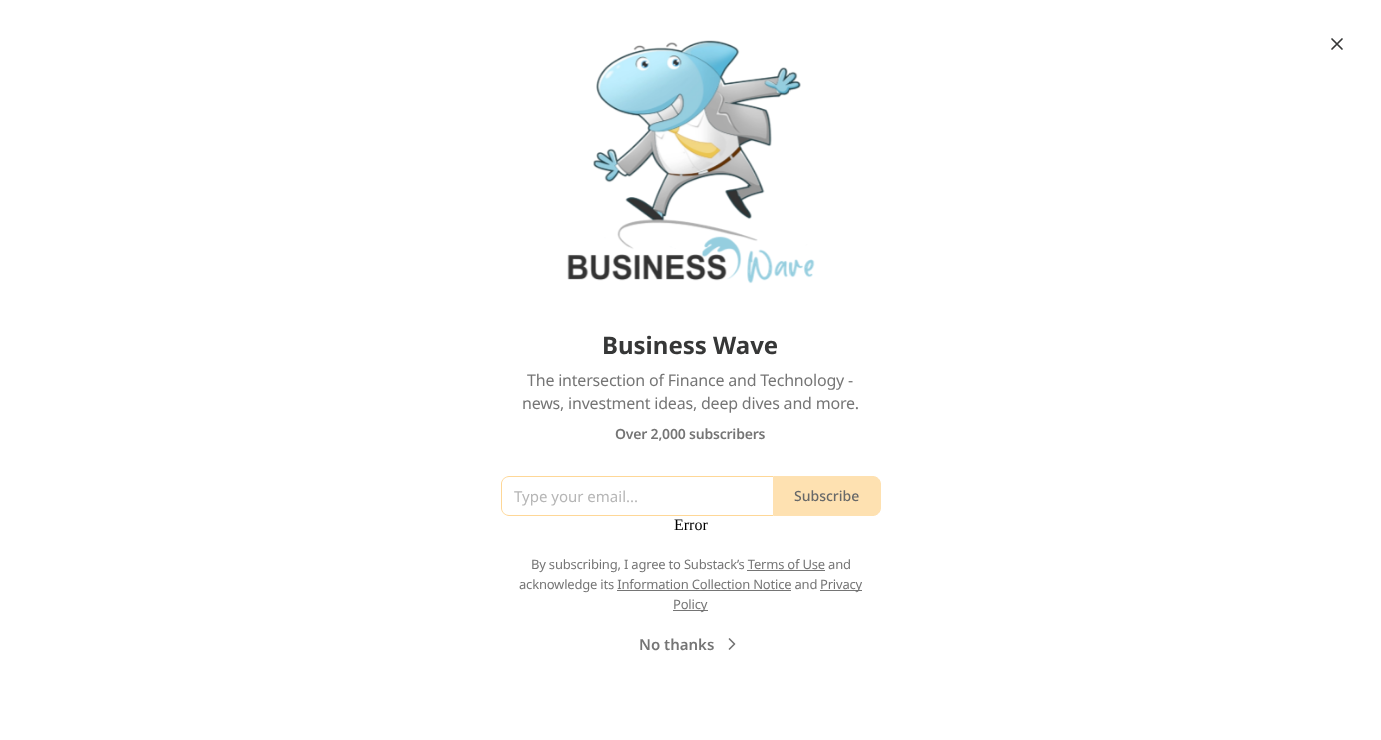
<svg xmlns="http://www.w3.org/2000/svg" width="1381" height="740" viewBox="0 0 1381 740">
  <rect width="100%" height="100%" fill="#ffffff"/>
  <image x="567" y="40" width="248" height="244" href="img1.png"/>
  <path d="M1342 39L1332 49M1332 39L1342 49" fill="none" stroke="#363737" stroke-width="1.7" stroke-linecap="round" stroke-linejoin="round"/>
  <text x="602" y="354" font-family="Noto Sans" font-size="24" font-weight="bold" fill="#363737">Business Wave</text>
  <text x="527" y="386" font-family="Noto Sans" font-size="16" letter-spacing="-0.2" fill="#757575">The intersection of Finance and Technology -</text>
  <text x="522" y="409" font-family="Noto Sans" font-size="16" letter-spacing="-0.2" fill="#757575">news, investment ideas, deep dives and more.</text>
  <text x="615" y="439" font-family="Noto Sans" font-size="14" font-weight="600" letter-spacing="-0.2" fill="#757575">Over 2,000 subscribers</text>
  <path d="M509 476H773V516H509C505 516 501 512 501 508V484C501 480 505 476 509 476ZM509 477H773V515H509C505 515 502 512 502 508V484C502 480 505 477 509 477Z" fill="#fed797" fill-rule="evenodd"/>
  <text x="514" y="502" font-family="Noto Sans" font-size="15" fill="#b6b6b6">Type your email...</text>
  <path d="M773.5 476.5H873C877 476.5 880.5 480 880.5 484V508C880.5 512 877 515.5 873 515.5H773.5Z" fill="#fee1b1" stroke="#fee1b1"/>
  <text x="794" y="501" font-family="Noto Sans" font-size="14" font-weight="500" fill="#686969">Subscribe</text>
  <text x="674" y="530" font-family="Liberation Serif" font-size="16" fill="#000000">Error</text>
  <text x="531" y="569" font-family="Noto Sans" font-size="13" letter-spacing="-0.2" fill="#757575">By subscribing, I agree to Substack’s Terms of Use and</text>
  <rect x="747" y="570" width="78" height="1" fill="#757575"/>
  <text x="519" y="589" font-family="Noto Sans" font-size="13" letter-spacing="-0.2" fill="#757575">acknowledge its Information Collection Notice and</text>
  <rect x="820" y="590" width="42" height="1" fill="#757575"/>
  <text x="820" y="589" font-family="Noto Sans" font-size="13" letter-spacing="-0.2" fill="#757575">Privacy</text>
  <rect x="617" y="590" width="174" height="1" fill="#757575"/>
  <rect x="673" y="610" width="35" height="1" fill="#757575"/>
  <text x="673" y="609" font-family="Noto Sans" font-size="13" letter-spacing="-0.2" fill="#757575">Policy</text>
  <text x="639" y="650" font-family="Noto Sans" font-size="15" font-weight="600" fill="#757575">No thanks</text>
  <path d="M729.5 649L734.5 644L729.5 639" fill="none" stroke="#757575" stroke-width="1.7" stroke-linecap="round" stroke-linejoin="round"/>
</svg>
